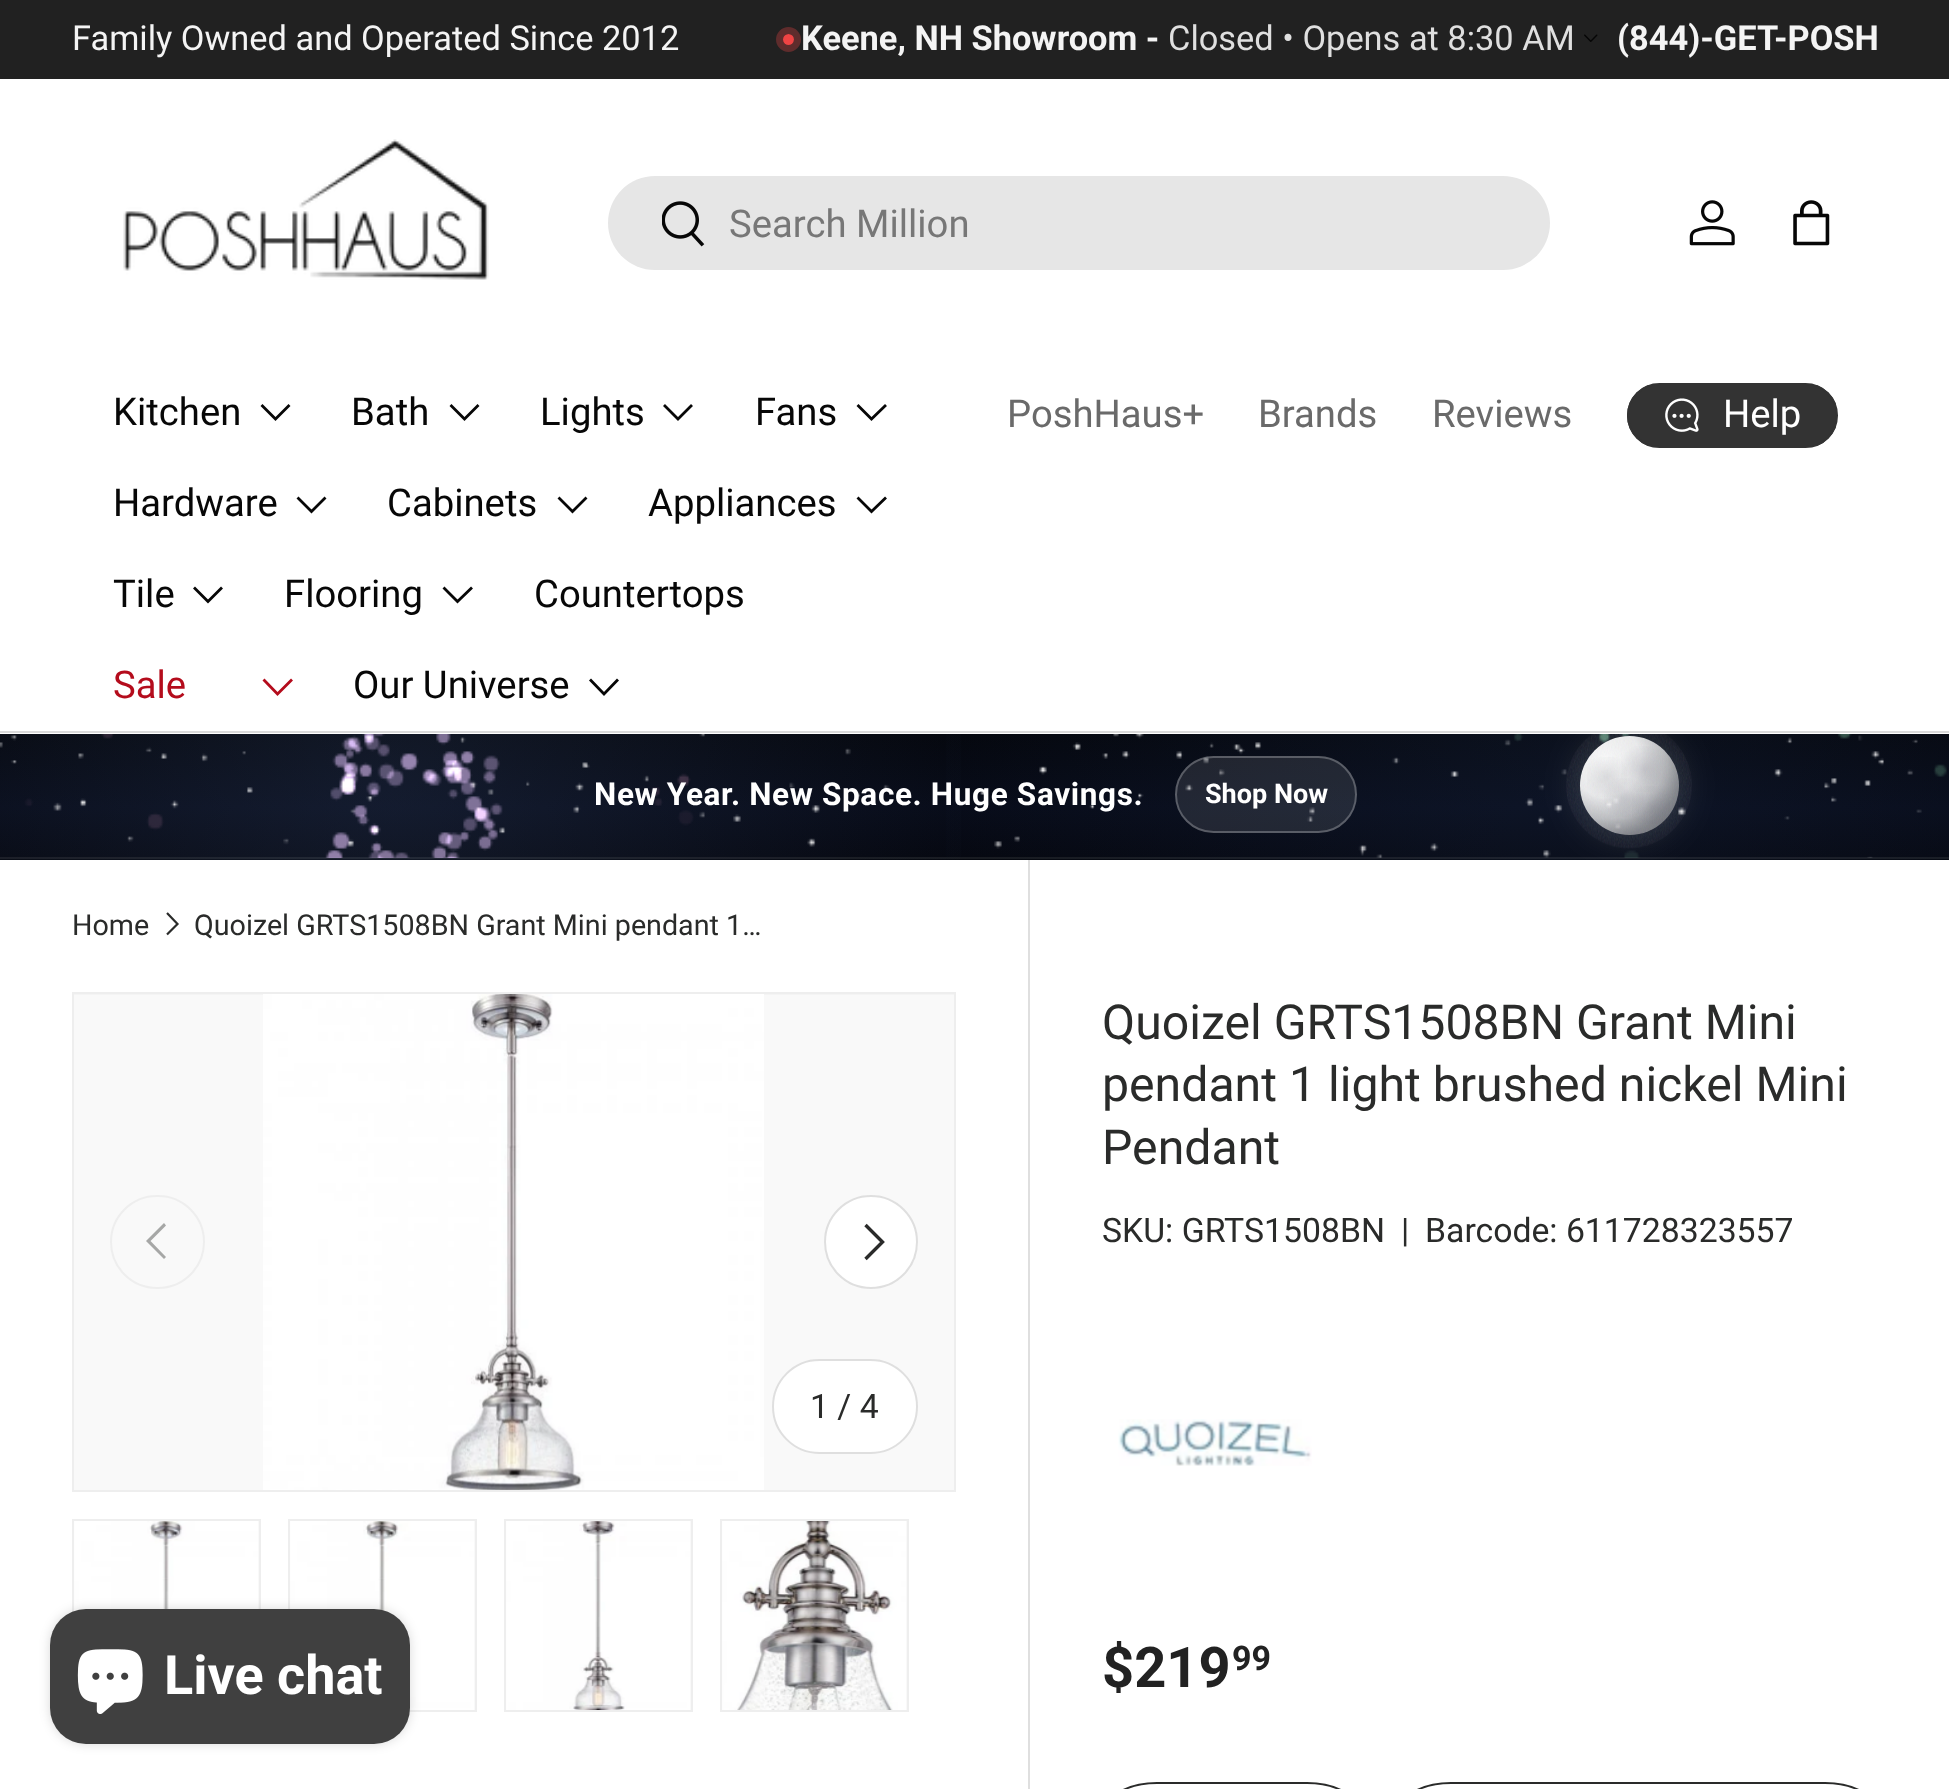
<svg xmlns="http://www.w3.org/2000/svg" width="1949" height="1789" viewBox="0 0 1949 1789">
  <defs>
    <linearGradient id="g1" gradientUnits="userSpaceOnUse" x1="975" y1="733" x2="975" y2="857"><stop offset="0" stop-color="#04060c"/><stop offset="0.6" stop-color="#070b18"/><stop offset="1" stop-color="#05070f"/></linearGradient>
    <radialGradient id="g2" gradientUnits="userSpaceOnUse" cx="1561" cy="758" r="1564"><stop offset="0" stop-color="#283c64" stop-opacity="0.2"/><stop offset="0.45" stop-color="#283c64" stop-opacity="0"/></radialGradient>
    <radialGradient id="g3" gradientUnits="userSpaceOnUse" cx="1561" cy="882" r="1564"><stop offset="0" stop-color="#0b111e"/><stop offset="0.45" stop-color="#04060c"/></radialGradient>
    <radialGradient id="g4" gradientUnits="userSpaceOnUse" cx="390" cy="894" r="1563"><stop offset="0" stop-color="#3c5078" stop-opacity="0.25"/><stop offset="0.4" stop-color="#3c5078" stop-opacity="0"/></radialGradient>
    <radialGradient id="g5" gradientUnits="userSpaceOnUse" cx="390" cy="771" r="1563"><stop offset="0" stop-color="#3c5078" stop-opacity="0.25"/><stop offset="0.4" stop-color="#3c5078" stop-opacity="0"/></radialGradient>
    <clipPath id="clip1"><path d="M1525 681H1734V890H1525ZM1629.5 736C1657 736 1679 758 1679 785.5C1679 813 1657 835 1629.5 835C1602 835 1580 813 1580 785.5C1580 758 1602 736 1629.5 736Z" clip-rule="evenodd"/></clipPath>
    <filter id="blur1" x="-50%" y="-200%" width="200%" height="500%"><feGaussianBlur stdDeviation="18"/></filter>
    <clipPath id="clip2"><rect x="1627" y="383" width="211" height="65" rx="32.5"/></clipPath>
    <linearGradient id="g6" gradientUnits="userSpaceOnUse" x1="1226" y1="340" x2="1825" y2="490"><stop offset="0.6" stop-color="#5a5a5a"/><stop offset="0.6" stop-color="#333333"/><stop offset="1" stop-color="#333333"/></linearGradient>
    <radialGradient id="g7" gradientUnits="userSpaceOnUse" cx="1605" cy="760" r="105"><stop offset="0" stop-color="#ffffff" stop-opacity="0.98"/><stop offset="0.34" stop-color="#ffffff" stop-opacity="0.92"/><stop offset="0.56" stop-color="#ededed" stop-opacity="0.78"/><stop offset="0.74" stop-color="#cbcbcb" stop-opacity="0.62"/><stop offset="1" stop-color="#a4a4a4" stop-opacity="0.5"/></radialGradient>
    <radialGradient id="g8" gradientUnits="userSpaceOnUse" cx="1607" cy="777" r="98"><stop offset="0" stop-color="#4a4a5a" stop-opacity="0.14"/><stop offset="0.24" stop-color="#4a4a5a" stop-opacity="0"/></radialGradient>
    <radialGradient id="g9" gradientUnits="userSpaceOnUse" cx="1653" cy="807" r="108"><stop offset="0" stop-color="#565666" stop-opacity="0.16"/><stop offset="0.23" stop-color="#565666" stop-opacity="0"/></radialGradient>
    <radialGradient id="g10" gradientUnits="userSpaceOnUse" cx="1624" cy="798" r="90"><stop offset="0" stop-color="#5b5b6b" stop-opacity="0.18"/><stop offset="0.25" stop-color="#5b5b6b" stop-opacity="0"/></radialGradient>
    <radialGradient id="g11" gradientUnits="userSpaceOnUse" cx="1644" cy="769" r="99"><stop offset="0" stop-color="#565666" stop-opacity="0.22"/><stop offset="0.26" stop-color="#565666" stop-opacity="0"/></radialGradient>
    <filter id="blur2" x="-50%" y="-200%" width="200%" height="500%"><feGaussianBlur stdDeviation="5.5"/></filter>
  </defs>
  <rect width="100%" height="100%" fill="#ffffff"/>
  <rect x="0" y="0" width="1949" height="79" fill="#212121"/>
  <text x="72" y="50" font-family="Roboto" font-size="34.4" fill="#f4f4f4">Family Owned and Operated Since 2012</text>
  <circle cx="788.5" cy="39.5" r="9" fill="none" stroke="#5f2c2c" stroke-width="7"/>
  <circle cx="788.5" cy="39.5" r="5.5" fill="#ef4444"/>
  <text x="801" y="50" font-family="Roboto" font-size="34.4" font-weight="bold" fill="#f4f4f4">Keene, NH Showroom -</text>
  <text x="1168" y="50" font-family="Roboto" font-size="34.4" fill="#dfdfdf">Closed • Opens at 8:30 AM</text>
  <image x="1584" y="34" width="14" height="8" href="img1.png"/>
  <text x="1617" y="50" font-family="Roboto" font-size="34.4" font-weight="bold" fill="#f4f4f4">(844)-GET-POSH</text>
  <rect x="0" y="734" width="1949" height="123" fill="url(#g1)"/>
  <rect x="946" y="734" width="1003" height="123" fill="url(#g2)"/>
  <rect x="0" y="857" width="1949" height="3" fill="url(#g3)"/>
  <rect x="0" y="857" width="960" height="3" fill="url(#g4)"/>
  <rect x="0" y="857" width="1949" height="2" fill="#ffffff" fill-opacity="0.08"/>
  <rect x="0" y="734" width="961" height="123" fill="url(#g5)"/>
  <image x="0" y="734" width="1947" height="124" href="img8.png"/>
  <g clip-path="url(#clip1)">
    <rect x="1580" y="736" width="99" height="99" rx="49.5" fill="#ffffff" fill-opacity="0.16" filter="url(#blur1)"/>
  </g>
  <rect x="0" y="731" width="1949" height="2" fill="#dadada"/>
  <image x="123" y="139" width="366" height="141" href="img2.png"/>
  <rect x="608" y="176" width="942" height="94" rx="47" fill="#e6e6e6"/>
  <image x="662" y="201" width="43" height="46" href="img3.png"/>
  <text x="729" y="237" font-family="Roboto" font-size="38.25" fill="#777777">Search Million</text>
  <image x="1689" y="200" width="46" height="46" href="img4.png"/>
  <image x="1793" y="200" width="37" height="46" href="img5.png"/>
  <text x="113" y="425" font-family="Roboto" font-size="38.25" fill="#070707">Kitchen</text>
  <path d="M289.5 405L275.5 419L261.5 405" fill="none" stroke="#070707" stroke-width="2.8"/>
  <text x="351" y="425" font-family="Roboto" font-size="38.25" fill="#070707">Bath</text>
  <path d="M478.5 405L464.5 419L450.5 405" fill="none" stroke="#070707" stroke-width="2.8"/>
  <text x="540" y="425" font-family="Roboto" font-size="38.25" fill="#070707">Lights</text>
  <path d="M692 405L678 419L664 405" fill="none" stroke="#070707" stroke-width="2.8"/>
  <text x="755" y="425" font-family="Roboto" font-size="38.25" fill="#070707">Fans</text>
  <path d="M886 405L871.5 419L857.5 405" fill="none" stroke="#070707" stroke-width="2.8"/>
  <text x="113" y="516" font-family="Roboto" font-size="38.25" fill="#070707">Hardware</text>
  <path d="M325.5 497.5L311.5 511.5L297.5 497.5" fill="none" stroke="#070707" stroke-width="2.8"/>
  <text x="387" y="516" font-family="Roboto" font-size="38.25" fill="#070707">Cabinets</text>
  <path d="M586.5 497.5L572.5 511.5L558.5 497.5" fill="none" stroke="#070707" stroke-width="2.8"/>
  <text x="648" y="516" font-family="Roboto" font-size="38.25" fill="#070707">Appliances</text>
  <path d="M886 497.5L871.5 511.5L857.5 497.5" fill="none" stroke="#070707" stroke-width="2.8"/>
  <text x="113" y="607" font-family="Roboto" font-size="38.25" fill="#070707">Tile</text>
  <path d="M222 587.5L208 601.5L194 587.5" fill="none" stroke="#070707" stroke-width="2.8"/>
  <text x="284" y="607" font-family="Roboto" font-size="38.25" fill="#070707">Flooring</text>
  <path d="M472 587.5L457.5 601.5L443.5 587.5" fill="none" stroke="#070707" stroke-width="2.8"/>
  <text x="534" y="607" font-family="Roboto" font-size="38.25" fill="#070707">Countertops</text>
  <text x="113" y="698" font-family="Roboto" font-size="38.25" fill="#b40c1c">Sale</text>
  <path d="M292 679.5L277.5 694L263.5 679.5" fill="none" stroke="#b40c1c" stroke-width="2.8"/>
  <text x="353" y="698" font-family="Roboto" font-size="38.25" fill="#070707">Our Universe</text>
  <path d="M618 679.5L604 694L590 679.5" fill="none" stroke="#070707" stroke-width="2.8"/>
  <text x="1007" y="427" font-family="Roboto" font-size="38.25" fill="#6a6a6a">PoshHaus+</text>
  <text x="1258" y="427" font-family="Roboto" font-size="38.25" fill="#6a6a6a">Brands</text>
  <text x="1432" y="427" font-family="Roboto" font-size="38.25" fill="#6a6a6a">Reviews</text>
  <g clip-path="url(#clip2)">
    <rect x="1627" y="385" width="209" height="61" fill="url(#g6)"/>
  </g>
  <rect x="1628" y="384" width="209" height="63" rx="31.5" fill="none" stroke="#333333" stroke-width="2"/>
  <image x="1665" y="398" width="34" height="34" href="img6.png"/>
  <text x="1723" y="427" font-family="Roboto" font-size="38.25" fill="#ffffff">Help</text>
  <circle cx="1629.5" cy="785.5" r="49.5" fill="url(#g7)"/>
  <rect x="1587" y="757" width="40" height="40" fill="url(#g8)"/>
  <rect x="1632" y="786" width="38" height="38" fill="url(#g9)"/>
  <rect x="1604" y="778" width="40" height="39" fill="url(#g10)"/>
  <rect x="1621" y="746" width="46" height="46" fill="url(#g11)"/>
  <image x="1566" y="734" width="126" height="115" href="img7.png"/>
  <text x="594" y="805" font-family="Roboto" font-size="31.5" font-weight="bold" letter-spacing="0.65" fill="#ffffff">New Year. New Space. Huge Savings.</text>
  <rect x="1175" y="756" width="182" height="77" rx="38.5" fill="#ffffff" fill-opacity="0.1"/>
  <rect x="1176" y="757" width="180" height="75" rx="37.5" fill="none" stroke="#ffffff" stroke-opacity="0.25" stroke-width="2"/>
  <text x="1205" y="803" font-family="Roboto" font-size="27" font-weight="bold" fill="#ffffff">Shop Now</text>
  <text x="72" y="935" font-family="Roboto" font-size="28.7" fill="#2a2b2a">Home</text>
  <path d="M167 913L177.5 924L167 934.5" fill="none" stroke="#2a2b2a" stroke-width="2.2"/>
  <text x="194" y="935" font-family="Roboto" font-size="28.7" fill="#2a2b2a">Quoizel GRTS1508BN Grant Mini pendant 1…</text>
  <rect x="74" y="994" width="880" height="1" fill="#f4f4f4"/>
  <rect x="73" y="993" width="882" height="498" fill="none" stroke="#eeeeee" stroke-width="2"/>
  <rect x="74" y="995" width="880" height="495" fill="#f9f9f9"/>
  <image x="263" y="994" width="501" height="496" href="img9.png"/>
  <rect x="111" y="1196" width="93" height="92" rx="46" fill="none" stroke="#eeeeee" stroke-width="2"/>
  <path d="M146 1241L164 1223L166 1225.5L150.5 1241L166 1257L164 1259Z" fill="#a6a7a6"/>
  <circle cx="871" cy="1242" r="47" fill="#ffffff"/>
  <circle cx="871" cy="1242" r="46" fill="none" stroke="#2a2b2a" stroke-opacity="0.15" stroke-width="2"/>
  <path d="M865.5 1225L882.5 1242L865.5 1259" fill="none" stroke="#2a2b2a" stroke-width="3.4"/>
  <rect x="772" y="1359" width="146" height="95" rx="47.5" fill="#ffffff"/>
  <rect x="773" y="1360" width="144" height="93" rx="46.5" fill="none" stroke="#2a2b2a" stroke-opacity="0.15" stroke-width="2"/>
  <text x="810" y="1418" font-family="Roboto" font-size="33.75" fill="#2a2b2a">1 / 4</text>
  <rect x="74" y="1521" width="185" height="91" fill="#f9f9f9"/>
  <rect x="73" y="1520" width="187" height="191" fill="none" stroke="#eeeeee" stroke-width="2"/>
  <image x="74" y="1521" width="184" height="91" href="img10.png"/>
  <rect x="289" y="1520" width="187" height="191" fill="#f9f9f9" stroke="#eeeeee" stroke-width="2"/>
  <image x="290" y="1521" width="184" height="189" href="img11.png"/>
  <rect x="505" y="1520" width="187" height="191" fill="#f9f9f9" stroke="#eeeeee" stroke-width="2"/>
  <image x="506" y="1521" width="184" height="189" href="img12.png"/>
  <rect x="721" y="1520" width="187" height="191" fill="#f9f9f9" stroke="#eeeeee" stroke-width="2"/>
  <image x="722" y="1521" width="184" height="189" href="img13.png"/>
  <rect x="1028" y="860" width="2" height="929" fill="#dfdfdf"/>
  <text x="1102" y="1039" font-family="Roboto" font-size="48.2" fill="#2a2b2a">Quoizel GRTS1508BN Grant Mini</text>
  <text x="1102" y="1101" font-family="Roboto" font-size="48.2" fill="#2a2b2a">pendant 1 light brushed nickel Mini</text>
  <text x="1102" y="1164" font-family="Roboto" font-size="48.2" fill="#2a2b2a">Pendant</text>
  <text x="1102" y="1242" font-family="Roboto" font-size="33.75" fill="#2a2b2a">SKU: GRTS1508BN</text>
  <text x="1401" y="1242" font-family="Roboto" font-size="33.75" fill="#2a2b2a">|</text>
  <text x="1425" y="1242" font-family="Roboto" font-size="33.75" fill="#2a2b2a">Barcode: 611728323557</text>
  <image x="1118" y="1419" width="194" height="47" href="img14.png"/>
  <text x="1102" y="1687" font-family="Roboto" font-size="56" font-weight="bold" fill="#222222">$219</text>
  <text x="1232" y="1670" font-family="Roboto" font-size="34" font-weight="bold" fill="#222222">99</text>
  <rect x="1104" y="1783" width="256" height="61" rx="53" fill="none" stroke="#2a2b2a" stroke-width="2"/>
  <rect x="1398" y="1783" width="480" height="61" rx="53" fill="none" stroke="#2a2b2a" stroke-width="2"/>
  <rect x="50" y="1609" width="360" height="135" rx="36" fill="#000000" fill-opacity="0.15" filter="url(#blur2)"/>
  <rect x="50" y="1609" width="360" height="135" rx="36" fill="#404040"/>
  <image x="77" y="1649" width="66" height="65" href="img15.png"/>
  <text x="164" y="1694" font-family="Roboto" font-size="54" font-weight="bold" fill="#ffffff">Live chat</text>
</svg>
